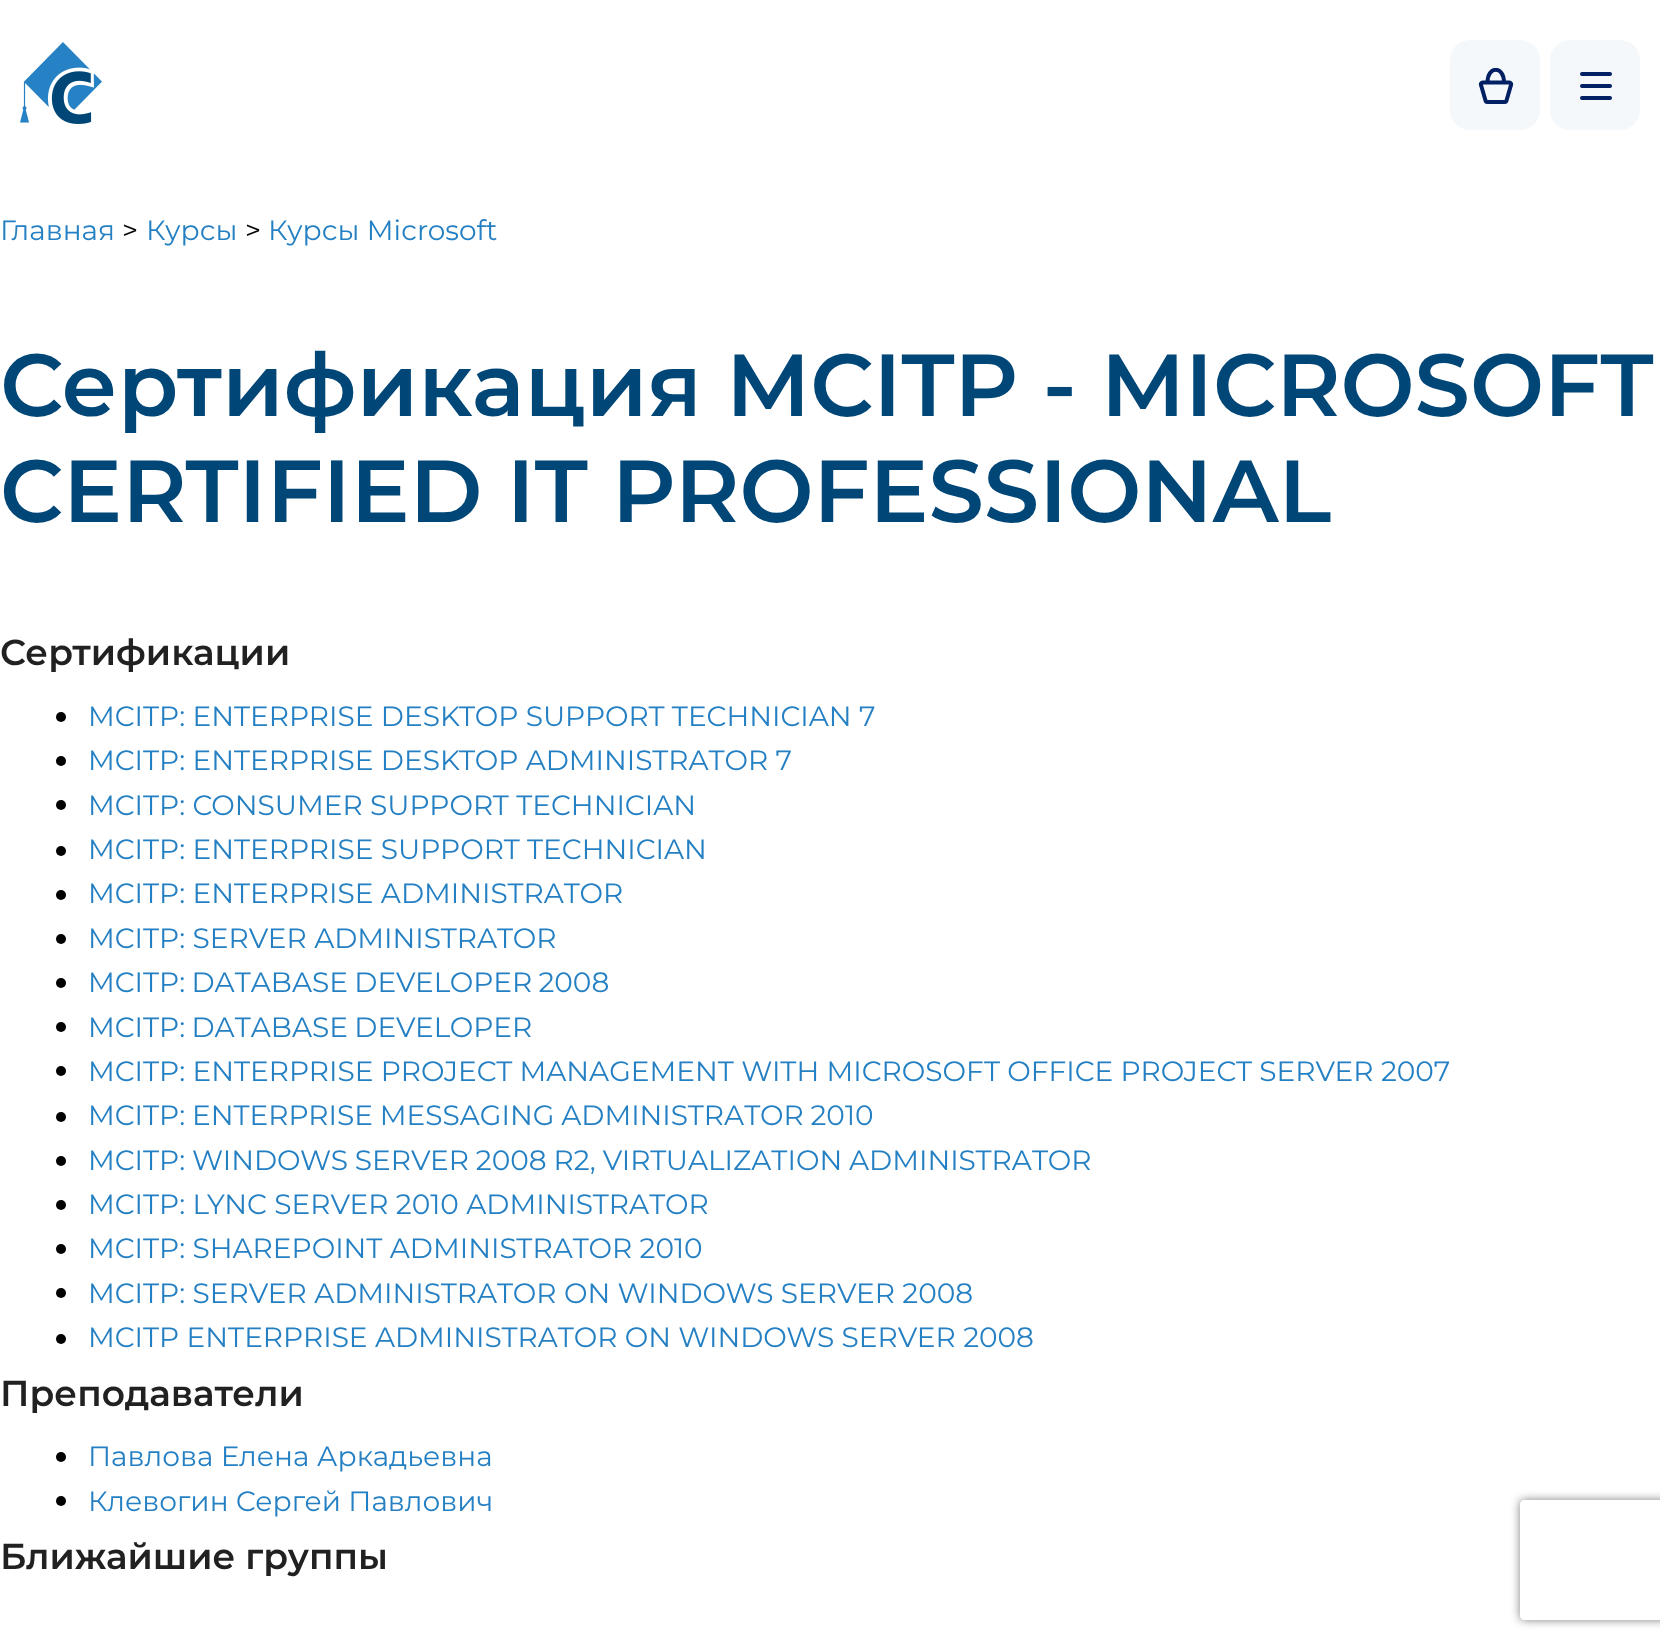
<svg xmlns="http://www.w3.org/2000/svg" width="1660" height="1648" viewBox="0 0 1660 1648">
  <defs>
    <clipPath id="clip1"><rect x="1478" y="68" width="36" height="36"/></clipPath>
    <clipPath id="clip2"><path d="M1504 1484H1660V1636H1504ZM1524 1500H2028C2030 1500 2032 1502 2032 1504V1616C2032 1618 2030 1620 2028 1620H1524C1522 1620 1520 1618 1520 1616V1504C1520 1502 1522 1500 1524 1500Z" clip-rule="evenodd"/></clipPath>
    <filter id="blur1" x="-50%" y="-200%" width="200%" height="500%"><feGaussianBlur stdDeviation="5"/></filter>
  </defs>
  <rect width="100%" height="100%" fill="#ffffff"/>
  <image x="20" y="42" width="82" height="82" href="img1.png"/>
  <rect x="1450" y="40" width="90" height="90" rx="20" fill="#f5f8fb"/>
  <g clip-path="url(#clip1)">
    <path d="M1487.5 82.5C1487.5 65.5 1504 65.5 1504 82.5M1504 82.5H1509.5C1510.5 82.5 1511.5 84 1511 85L1506.5 100.5C1506.5 101.5 1505.5 102 1505 102H1487C1486.5 102 1485.5 101.5 1485.5 100.5L1481 85C1480.5 84 1481.5 82.5 1482.5 82.5Z" fill="none" stroke="#012063" stroke-width="4"/>
  </g>
  <rect x="1550" y="40" width="90" height="90" rx="20" fill="#f5f8fb"/>
  <path d="M1582 74H1610M1582 86H1610M1582 98H1610" fill="none" stroke="#012063" stroke-width="4" stroke-linecap="round"/>
  <text x="0" y="240" font-family="Montserrat" font-size="28" fill="#2580c3">Главная</text>
  <text x="122" y="240" font-family="Montserrat" font-size="28" fill="#000000">&gt;</text>
  <text x="146" y="240" font-family="Montserrat" font-size="28" fill="#2580c3">Курсы</text>
  <text x="245" y="240" font-family="Montserrat" font-size="28" fill="#000000">&gt;</text>
  <text x="268" y="240" font-family="Montserrat" font-size="28" fill="#2580c3">Курсы Microsoft</text>
  <text x="0" y="416" font-family="Montserrat" font-size="88" font-weight="600" fill="#004677">Сертификация MCITP - MICROSOFT</text>
  <text x="0" y="522" font-family="Montserrat" font-size="88" font-weight="600" fill="#004677">CERTIFIED IT PROFESSIONAL</text>
  <text x="0" y="665" font-family="Montserrat" font-size="36" font-weight="600" fill="#212121">Сертификации</text>
  <circle cx="61" cy="717" r="5" fill="#000000"/>
  <text x="88" y="726" font-family="Montserrat" font-size="28" fill="#2580c3">MCITP: ENTERPRISE DESKTOP SUPPORT TECHNICIAN 7</text>
  <circle cx="61" cy="761" r="5" fill="#000000"/>
  <text x="88" y="770" font-family="Montserrat" font-size="28" fill="#2580c3">MCITP: ENTERPRISE DESKTOP ADMINISTRATOR 7</text>
  <circle cx="61" cy="805" r="5" fill="#000000"/>
  <text x="88" y="815" font-family="Montserrat" font-size="28" fill="#2580c3">MCITP: CONSUMER SUPPORT TECHNICIAN</text>
  <circle cx="61" cy="851" r="5" fill="#000000"/>
  <text x="88" y="859" font-family="Montserrat" font-size="28" fill="#2580c3">MCITP: ENTERPRISE SUPPORT TECHNICIAN</text>
  <circle cx="61" cy="895" r="5" fill="#000000"/>
  <text x="88" y="903" font-family="Montserrat" font-size="28" fill="#2580c3">MCITP: ENTERPRISE ADMINISTRATOR</text>
  <circle cx="61" cy="939" r="5" fill="#000000"/>
  <text x="88" y="948" font-family="Montserrat" font-size="28" fill="#2580c3">MCITP: SERVER ADMINISTRATOR</text>
  <circle cx="61" cy="983" r="5" fill="#000000"/>
  <text x="88" y="992" word-spacing="-1" font-family="Montserrat" font-size="28" fill="#2580c3">MCITP: DATABASE DEVELOPER 2008</text>
  <circle cx="61" cy="1027" r="5" fill="#000000"/>
  <text x="88" y="1037" word-spacing="-1" font-family="Montserrat" font-size="28" fill="#2580c3">MCITP: DATABASE DEVELOPER</text>
  <circle cx="61" cy="1071" r="5" fill="#000000"/>
  <text x="88" y="1081" font-family="Montserrat" font-size="28" fill="#2580c3">MCITP: ENTERPRISE PROJECT MANAGEMENT WITH MICROSOFT OFFICE PROJECT SERVER 2007</text>
  <circle cx="61" cy="1117" r="5" fill="#000000"/>
  <text x="88" y="1125" word-spacing="-0.5" font-family="Montserrat" font-size="28" fill="#2580c3">MCITP: ENTERPRISE MESSAGING ADMINISTRATOR 2010</text>
  <circle cx="61" cy="1161" r="5" fill="#000000"/>
  <text x="88" y="1170" word-spacing="-0.5" font-family="Montserrat" font-size="28" fill="#2580c3">MCITP: WINDOWS SERVER 2008 R2, VIRTUALIZATION ADMINISTRATOR</text>
  <circle cx="61" cy="1205" r="5" fill="#000000"/>
  <text x="88" y="1214" font-family="Montserrat" font-size="28" fill="#2580c3">MCITP: LYNC SERVER 2010 ADMINISTRATOR</text>
  <circle cx="61" cy="1249" r="5" fill="#000000"/>
  <text x="88" y="1258" font-family="Montserrat" font-size="28" fill="#2580c3">MCITP: SHAREPOINT ADMINISTRATOR 2010</text>
  <circle cx="61" cy="1293" r="5" fill="#000000"/>
  <text x="88" y="1303" font-family="Montserrat" font-size="28" fill="#2580c3">MCITP: SERVER ADMINISTRATOR ON WINDOWS SERVER 2008</text>
  <circle cx="61" cy="1339" r="5" fill="#000000"/>
  <text x="88" y="1347" font-family="Montserrat" font-size="28" fill="#2580c3">MCITP ENTERPRISE ADMINISTRATOR ON WINDOWS SERVER 2008</text>
  <text x="0" y="1406" font-family="Montserrat" font-size="36" font-weight="600" fill="#212121">Преподаватели</text>
  <circle cx="61" cy="1457" r="5" fill="#000000"/>
  <text x="88" y="1466" font-family="Montserrat" font-size="28" fill="#2580c3">Павлова Елена Аркадьевна</text>
  <circle cx="61" cy="1501" r="5" fill="#000000"/>
  <text x="88" y="1511" font-family="Montserrat" font-size="28" fill="#2580c3">Клевогин Сергей Павлович</text>
  <text x="0" y="1569" font-family="Montserrat" font-size="36" font-weight="600" fill="#212121">Ближайшие группы</text>
  <g clip-path="url(#clip2)">
    <rect x="1520" y="1500" width="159" height="120" rx="4" fill="#808080" filter="url(#blur1)"/>
  </g>
</svg>
